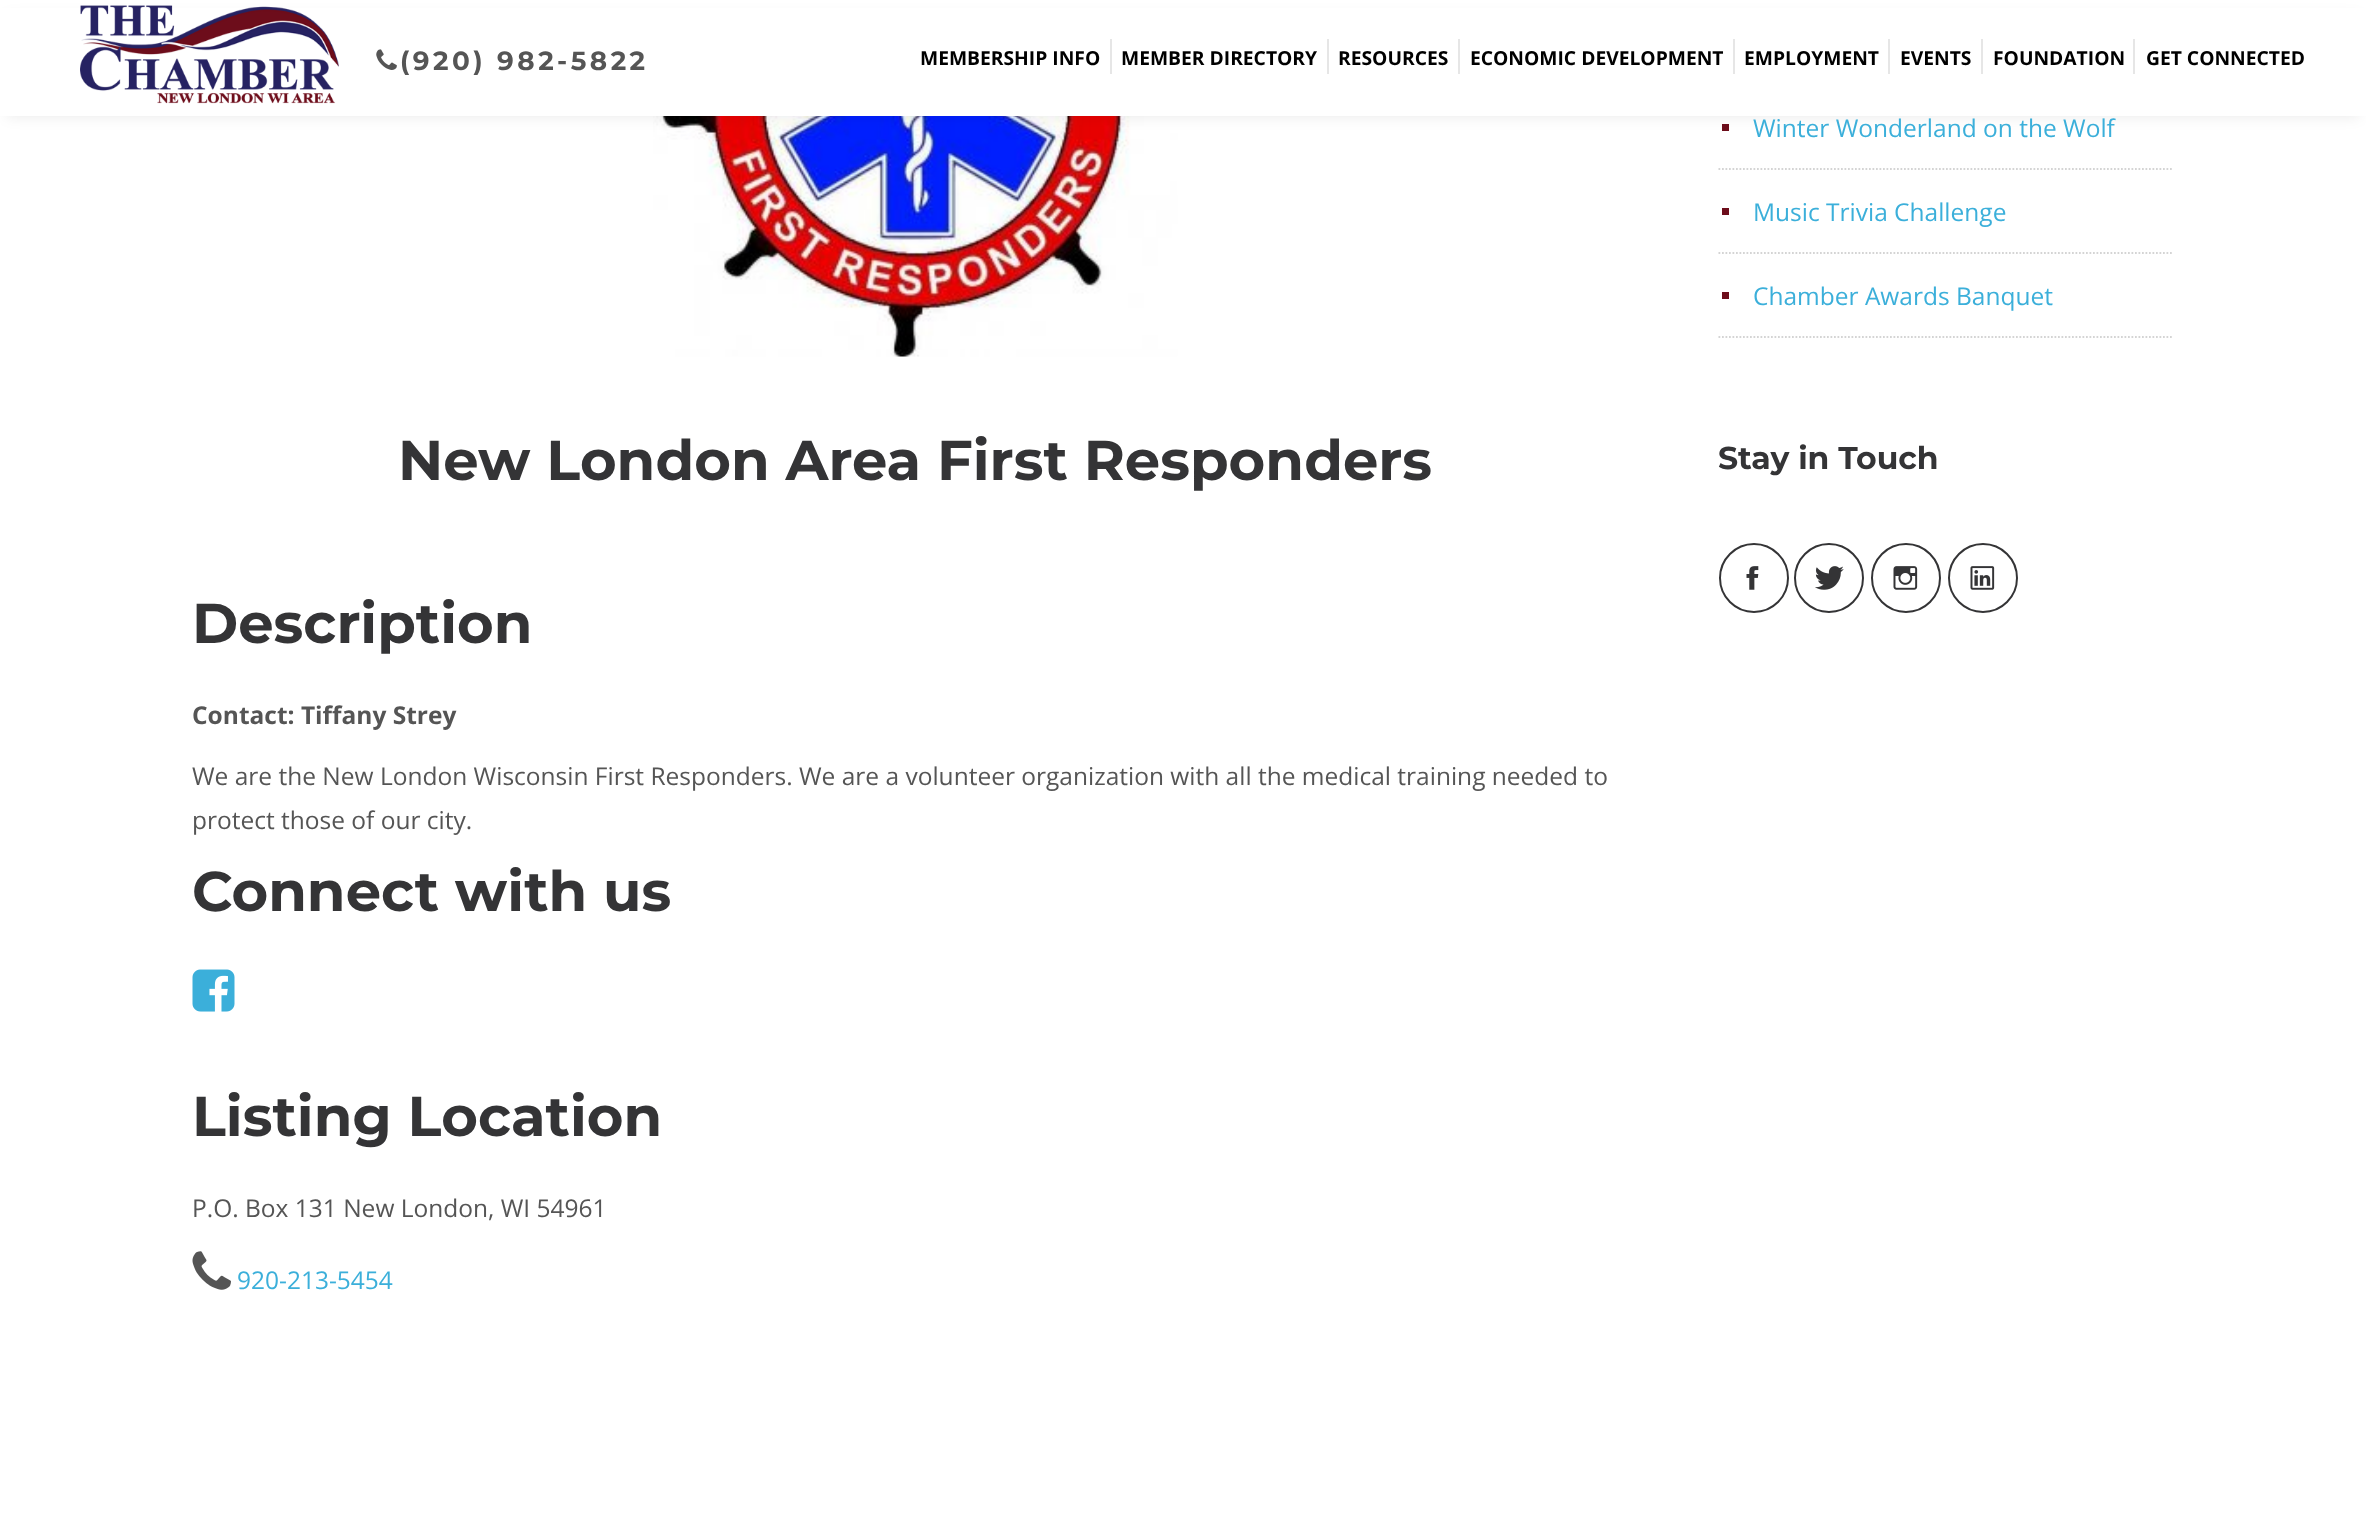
<svg xmlns="http://www.w3.org/2000/svg" width="2366" height="1516" viewBox="0 0 2366 1516">
  <defs>
    <filter id="blur1" x="-50%" y="-200%" width="200%" height="500%"><feGaussianBlur stdDeviation="7"/></filter>
  </defs>
  <rect width="100%" height="100%" fill="#ffffff"/>
  <rect x="1722" y="124" width="7" height="7" fill="#6d0d1b"/>
  <image x="653" y="116" width="525" height="241" href="img7.png"/>
  <rect x="7" y="16" width="2352" height="101" fill="#000000" fill-opacity="0.08" filter="url(#blur1)"/>
  <rect x="0" y="8" width="2366" height="108" fill="#ffffff"/>
  <image x="80" y="5" width="259" height="99" href="img1.png"/>
  <image x="376" y="49" width="21" height="21" href="img2.png"/>
  <text x="400" y="70" font-family="Montserrat" font-size="26.25" font-weight="100" letter-spacing="3.5" fill="#555555">(920) 982-5822</text>
  <text x="920" y="65" font-family="Open Sans" font-size="19.25" font-weight="bold" fill="#000000">MEMBERSHIP INFO</text>
  <rect x="1110" y="39" width="2" height="35" fill="#e6e6e6"/>
  <text x="1121" y="65" font-family="Open Sans" font-size="19.25" font-weight="bold" fill="#000000">MEMBER DIRECTORY</text>
  <rect x="1327" y="39" width="2" height="35" fill="#e6e6e6"/>
  <text x="1338" y="65" font-family="Open Sans" font-size="19.25" font-weight="bold" fill="#000000">RESOURCES</text>
  <rect x="1458" y="39" width="2" height="35" fill="#e6e6e6"/>
  <text x="1470" y="65" font-family="Open Sans" font-size="19.25" font-weight="bold" fill="#000000">ECONOMIC DEVELOPMENT</text>
  <rect x="1733" y="39" width="2" height="35" fill="#e6e6e6"/>
  <text x="1744" y="65" font-family="Open Sans" font-size="19.25" font-weight="bold" fill="#000000">EMPLOYMENT</text>
  <rect x="1888" y="39" width="2" height="35" fill="#e6e6e6"/>
  <text x="1900" y="65" font-family="Open Sans" font-size="19.25" font-weight="bold" fill="#000000">EVENTS</text>
  <rect x="1981" y="39" width="2" height="35" fill="#e6e6e6"/>
  <text x="1993" y="65" font-family="Open Sans" font-size="19.25" font-weight="bold" fill="#000000">FOUNDATION</text>
  <rect x="2133" y="39" width="2" height="35" fill="#e6e6e6"/>
  <text x="2146" y="65" font-family="Open Sans" font-size="19.25" font-weight="bold" fill="#000000">GET CONNECTED</text>
  <path d="M1718.5 169H2173.5" fill="none" stroke="#d4d4d4" stroke-width="1.8" stroke-dasharray="1.75 1.75"/>
  <text x="1753" y="137" font-family="Open Sans" font-size="24.5" fill="#3bafda">Winter Wonderland on the Wolf</text>
  <path d="M1718.5 253H2173.5" fill="none" stroke="#d4d4d4" stroke-width="1.8" stroke-dasharray="1.75 1.75"/>
  <rect x="1722" y="208" width="7" height="7" fill="#6d0d1b"/>
  <text x="1753" y="221" font-family="Open Sans" font-size="24.5" fill="#3bafda">Music Trivia Challenge</text>
  <path d="M1718.5 337H2173.5" fill="none" stroke="#d4d4d4" stroke-width="1.8" stroke-dasharray="1.75 1.75"/>
  <rect x="1722" y="292" width="7" height="7" fill="#6d0d1b"/>
  <text x="1753" y="305" font-family="Open Sans" font-size="24.5" fill="#3bafda">Chamber Awards Banquet</text>
  <text x="1718" y="469" font-family="Montserrat" font-size="31.5" font-weight="100" fill="#343436">Stay in Touch</text>
  <circle cx="1754" cy="578" r="34" fill="none" stroke="#343436" stroke-width="2"/>
  <image x="1746" y="566" width="13" height="24" href="img3.png"/>
  <circle cx="1829" cy="578" r="34" fill="none" stroke="#343436" stroke-width="2"/>
  <image x="1815" y="566" width="29" height="24" href="img4.png"/>
  <circle cx="1906" cy="578" r="34" fill="none" stroke="#343436" stroke-width="2"/>
  <image x="1893" y="566" width="25" height="24" href="img5.png"/>
  <circle cx="1983" cy="578" r="34" fill="none" stroke="#343436" stroke-width="2"/>
  <image x="1970" y="566" width="25" height="24" href="img6.png"/>
  <text x="398" y="480" font-family="Montserrat" font-size="56" font-weight="100" fill="#343436">New London Area First Responders</text>
  <text x="192" y="643" font-family="Montserrat" font-size="56" font-weight="100" fill="#343436">Description</text>
  <text x="192" y="724" font-family="Open Sans" font-size="24.5" font-weight="bold" fill="#555555">Contact: Tiffany Strey</text>
  <text x="192" y="785" font-family="Open Sans" font-size="24.5" fill="#555555">We are the New London Wisconsin First Responders. We are a volunteer organization with all the medical training needed to</text>
  <text x="192" y="829" font-family="Open Sans" font-size="24.5" fill="#555555">protect those of our city.</text>
  <text x="192" y="911" font-family="Montserrat" font-size="56" font-weight="100" fill="#343436">Connect with us</text>
  <image x="192" y="969" width="43" height="43" href="img8.png"/>
  <text x="192" y="1136" font-family="Montserrat" font-size="56" font-weight="100" fill="#343436">Listing Location</text>
  <text x="192" y="1217" font-family="Open Sans" font-size="24.5" fill="#555555">P.O. Box 131 New London, WI 54961</text>
  <image x="192" y="1251" width="39" height="39" href="img9.png"/>
  <text x="237" y="1289" font-family="Open Sans" font-size="24.5" fill="#3bafda">920-213-5454</text>
</svg>
